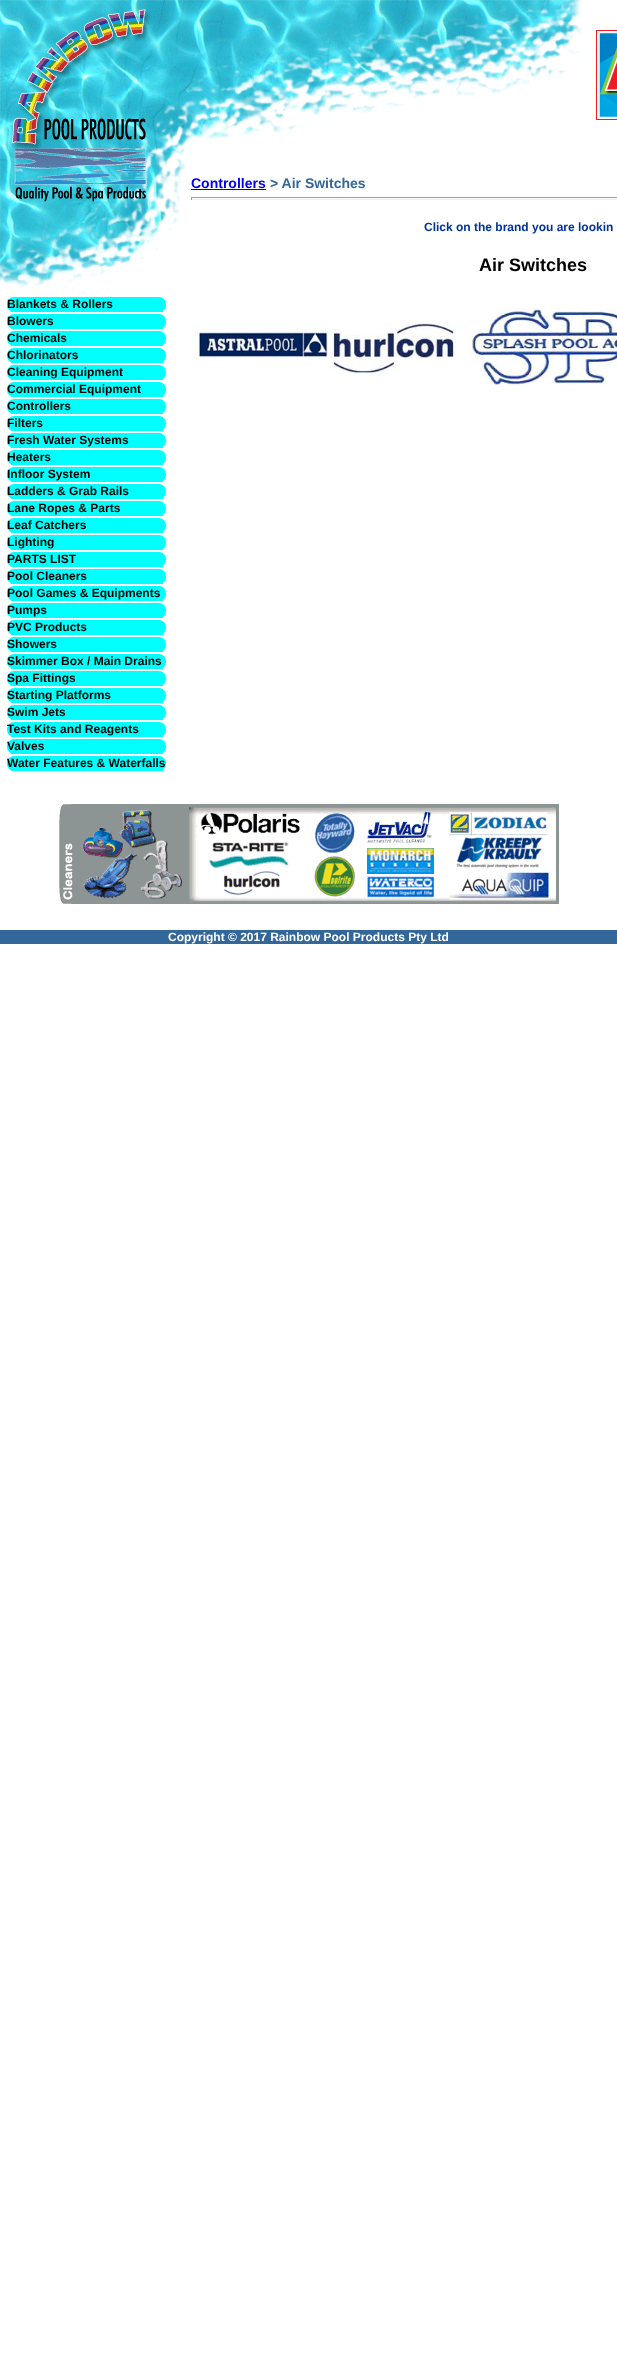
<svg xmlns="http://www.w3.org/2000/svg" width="617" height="2374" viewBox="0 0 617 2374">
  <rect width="100%" height="100%" fill="#ffffff"/>
  <image x="186" y="0" width="397" height="141" href="img1.png"/>
  <image x="596" y="30" width="21" height="90" href="img2.png"/>
  <text x="191" y="188" font-family="Liberation Sans" font-size="14" font-weight="bold" fill="#0000ee">Controllers</text>
  <rect x="191" y="189" width="75" height="1" fill="#0000ee"/>
  <text x="270" y="188" font-family="Liberation Sans" font-size="14" font-weight="bold" fill="#336699">&gt; Air Switches</text>
  <rect x="191" y="197" width="426" height="1" fill="#9f9f9f"/>
  <rect x="191" y="199" width="426" height="1" fill="#eeeeee"/>
  <rect x="191" y="197" width="1" height="3" fill="#9f9f9f"/>
  <text x="424" y="231" font-family="Liberation Sans" font-size="12" font-weight="bold" fill="#003399">Click on the brand you are lookin</text>
  <text x="479" y="271" font-family="Liberation Sans" font-size="18" font-weight="bold" fill="#000000">Air Switches</text>
  <image x="194" y="323" width="261" height="50" href="img3.png"/>
  <image x="469" y="308" width="148" height="77" href="img4.png"/>
  <image x="0" y="0" width="186" height="287" href="img5.png"/>
  <rect x="7" y="297" width="159" height="15" rx="7" fill="#00ffff"/>
  <rect x="11" y="311" width="152" height="1" fill="#00ffff"/>
  <text x="7" y="308" font-family="Liberation Sans" font-size="12" font-weight="bold" fill="#000000">Blankets &amp; Rollers</text>
  <rect x="7" y="314" width="159" height="15" rx="7" fill="#00ffff"/>
  <rect x="11" y="328" width="152" height="1" fill="#00ffff"/>
  <text x="7" y="325" font-family="Liberation Sans" font-size="12" font-weight="bold" fill="#000000">Blowers</text>
  <rect x="7" y="331" width="159" height="15" rx="7" fill="#00ffff"/>
  <rect x="11" y="345" width="152" height="1" fill="#00ffff"/>
  <text x="7" y="342" font-family="Liberation Sans" font-size="12" font-weight="bold" fill="#000000">Chemicals</text>
  <rect x="7" y="348" width="159" height="15" rx="7" fill="#00ffff"/>
  <rect x="11" y="362" width="152" height="1" fill="#00ffff"/>
  <text x="7" y="359" font-family="Liberation Sans" font-size="12" font-weight="bold" fill="#000000">Chlorinators</text>
  <rect x="7" y="365" width="159" height="15" rx="7" fill="#00ffff"/>
  <rect x="11" y="379" width="152" height="1" fill="#00ffff"/>
  <text x="7" y="376" font-family="Liberation Sans" font-size="12" font-weight="bold" fill="#000000">Cleaning Equipment</text>
  <rect x="7" y="382" width="159" height="15" rx="7" fill="#00ffff"/>
  <rect x="11" y="396" width="152" height="1" fill="#00ffff"/>
  <text x="7" y="393" font-family="Liberation Sans" font-size="12" font-weight="bold" fill="#000000">Commercial Equipment</text>
  <rect x="7" y="399" width="159" height="15" rx="7" fill="#00ffff"/>
  <rect x="11" y="413" width="152" height="1" fill="#00ffff"/>
  <text x="7" y="410" font-family="Liberation Sans" font-size="12" font-weight="bold" fill="#000000">Controllers</text>
  <rect x="7" y="416" width="159" height="15" rx="7" fill="#00ffff"/>
  <rect x="11" y="430" width="152" height="1" fill="#00ffff"/>
  <text x="7" y="427" font-family="Liberation Sans" font-size="12" font-weight="bold" fill="#000000">Filters</text>
  <rect x="7" y="433" width="159" height="15" rx="7" fill="#00ffff"/>
  <rect x="11" y="447" width="152" height="1" fill="#00ffff"/>
  <text x="7" y="444" font-family="Liberation Sans" font-size="12" font-weight="bold" fill="#000000">Fresh Water Systems</text>
  <rect x="7" y="450" width="159" height="15" rx="7" fill="#00ffff"/>
  <rect x="11" y="464" width="152" height="1" fill="#00ffff"/>
  <text x="7" y="461" font-family="Liberation Sans" font-size="12" font-weight="bold" fill="#000000">Heaters</text>
  <rect x="7" y="467" width="159" height="15" rx="7" fill="#00ffff"/>
  <rect x="11" y="481" width="152" height="1" fill="#00ffff"/>
  <text x="7" y="478" font-family="Liberation Sans" font-size="12" font-weight="bold" fill="#000000">Infloor System</text>
  <rect x="7" y="484" width="159" height="15" rx="7" fill="#00ffff"/>
  <rect x="11" y="498" width="152" height="1" fill="#00ffff"/>
  <text x="7" y="495" font-family="Liberation Sans" font-size="12" font-weight="bold" fill="#000000">Ladders &amp; Grab Rails</text>
  <rect x="7" y="501" width="159" height="15" rx="7" fill="#00ffff"/>
  <rect x="11" y="515" width="152" height="1" fill="#00ffff"/>
  <text x="7" y="512" font-family="Liberation Sans" font-size="12" font-weight="bold" fill="#000000">Lane Ropes &amp; Parts</text>
  <rect x="7" y="518" width="159" height="15" rx="7" fill="#00ffff"/>
  <rect x="11" y="532" width="152" height="1" fill="#00ffff"/>
  <text x="7" y="529" font-family="Liberation Sans" font-size="12" font-weight="bold" fill="#000000">Leaf Catchers</text>
  <rect x="7" y="535" width="159" height="15" rx="7" fill="#00ffff"/>
  <rect x="11" y="549" width="152" height="1" fill="#00ffff"/>
  <text x="7" y="546" font-family="Liberation Sans" font-size="12" font-weight="bold" fill="#000000">Lighting</text>
  <rect x="7" y="552" width="159" height="15" rx="7" fill="#00ffff"/>
  <rect x="11" y="566" width="152" height="1" fill="#00ffff"/>
  <text x="7" y="563" font-family="Liberation Sans" font-size="12" font-weight="bold" fill="#000000">PARTS LIST</text>
  <rect x="7" y="569" width="159" height="15" rx="7" fill="#00ffff"/>
  <rect x="11" y="583" width="152" height="1" fill="#00ffff"/>
  <text x="7" y="580" font-family="Liberation Sans" font-size="12" font-weight="bold" fill="#000000">Pool Cleaners</text>
  <rect x="7" y="586" width="159" height="15" rx="7" fill="#00ffff"/>
  <rect x="11" y="600" width="152" height="1" fill="#00ffff"/>
  <text x="7" y="597" font-family="Liberation Sans" font-size="12" font-weight="bold" fill="#000000">Pool Games &amp; Equipments</text>
  <rect x="7" y="603" width="159" height="15" rx="7" fill="#00ffff"/>
  <rect x="11" y="617" width="152" height="1" fill="#00ffff"/>
  <text x="7" y="614" font-family="Liberation Sans" font-size="12" font-weight="bold" fill="#000000">Pumps</text>
  <rect x="7" y="620" width="159" height="15" rx="7" fill="#00ffff"/>
  <rect x="11" y="634" width="152" height="1" fill="#00ffff"/>
  <text x="7" y="631" font-family="Liberation Sans" font-size="12" font-weight="bold" fill="#000000">PVC Products</text>
  <rect x="7" y="637" width="159" height="15" rx="7" fill="#00ffff"/>
  <rect x="11" y="651" width="152" height="1" fill="#00ffff"/>
  <text x="7" y="648" font-family="Liberation Sans" font-size="12" font-weight="bold" fill="#000000">Showers</text>
  <rect x="7" y="654" width="159" height="15" rx="7" fill="#00ffff"/>
  <rect x="11" y="668" width="152" height="1" fill="#00ffff"/>
  <text x="7" y="665" font-family="Liberation Sans" font-size="12" font-weight="bold" fill="#000000">Skimmer Box / Main Drains</text>
  <rect x="7" y="671" width="159" height="15" rx="7" fill="#00ffff"/>
  <rect x="11" y="685" width="152" height="1" fill="#00ffff"/>
  <text x="7" y="682" font-family="Liberation Sans" font-size="12" font-weight="bold" fill="#000000">Spa Fittings</text>
  <rect x="7" y="688" width="159" height="15" rx="7" fill="#00ffff"/>
  <rect x="11" y="702" width="152" height="1" fill="#00ffff"/>
  <text x="7" y="699" font-family="Liberation Sans" font-size="12" font-weight="bold" fill="#000000">Starting Platforms</text>
  <rect x="7" y="705" width="159" height="15" rx="7" fill="#00ffff"/>
  <rect x="11" y="719" width="152" height="1" fill="#00ffff"/>
  <text x="7" y="716" font-family="Liberation Sans" font-size="12" font-weight="bold" fill="#000000">Swim Jets</text>
  <rect x="7" y="722" width="159" height="15" rx="7" fill="#00ffff"/>
  <rect x="11" y="736" width="152" height="1" fill="#00ffff"/>
  <text x="7" y="733" font-family="Liberation Sans" font-size="12" font-weight="bold" fill="#000000">Test Kits and Reagents</text>
  <rect x="7" y="739" width="159" height="15" rx="7" fill="#00ffff"/>
  <rect x="11" y="753" width="152" height="1" fill="#00ffff"/>
  <text x="7" y="750" font-family="Liberation Sans" font-size="12" font-weight="bold" fill="#000000">Valves</text>
  <rect x="7" y="756" width="159" height="15" rx="7" fill="#00ffff"/>
  <rect x="11" y="770" width="152" height="1" fill="#00ffff"/>
  <text x="7" y="767" font-family="Liberation Sans" font-size="12" font-weight="bold" fill="#000000">Water Features &amp; Waterfalls</text>
  <image x="59" y="804" width="500" height="100" href="img6.png"/>
  <rect x="0" y="930" width="617" height="14" fill="#336699"/>
  <text x="168" y="941" font-family="Liberation Sans" font-size="12" font-weight="bold" fill="#ffffff">Copyright © 2017 Rainbow Pool Products Pty Ltd</text>
</svg>
